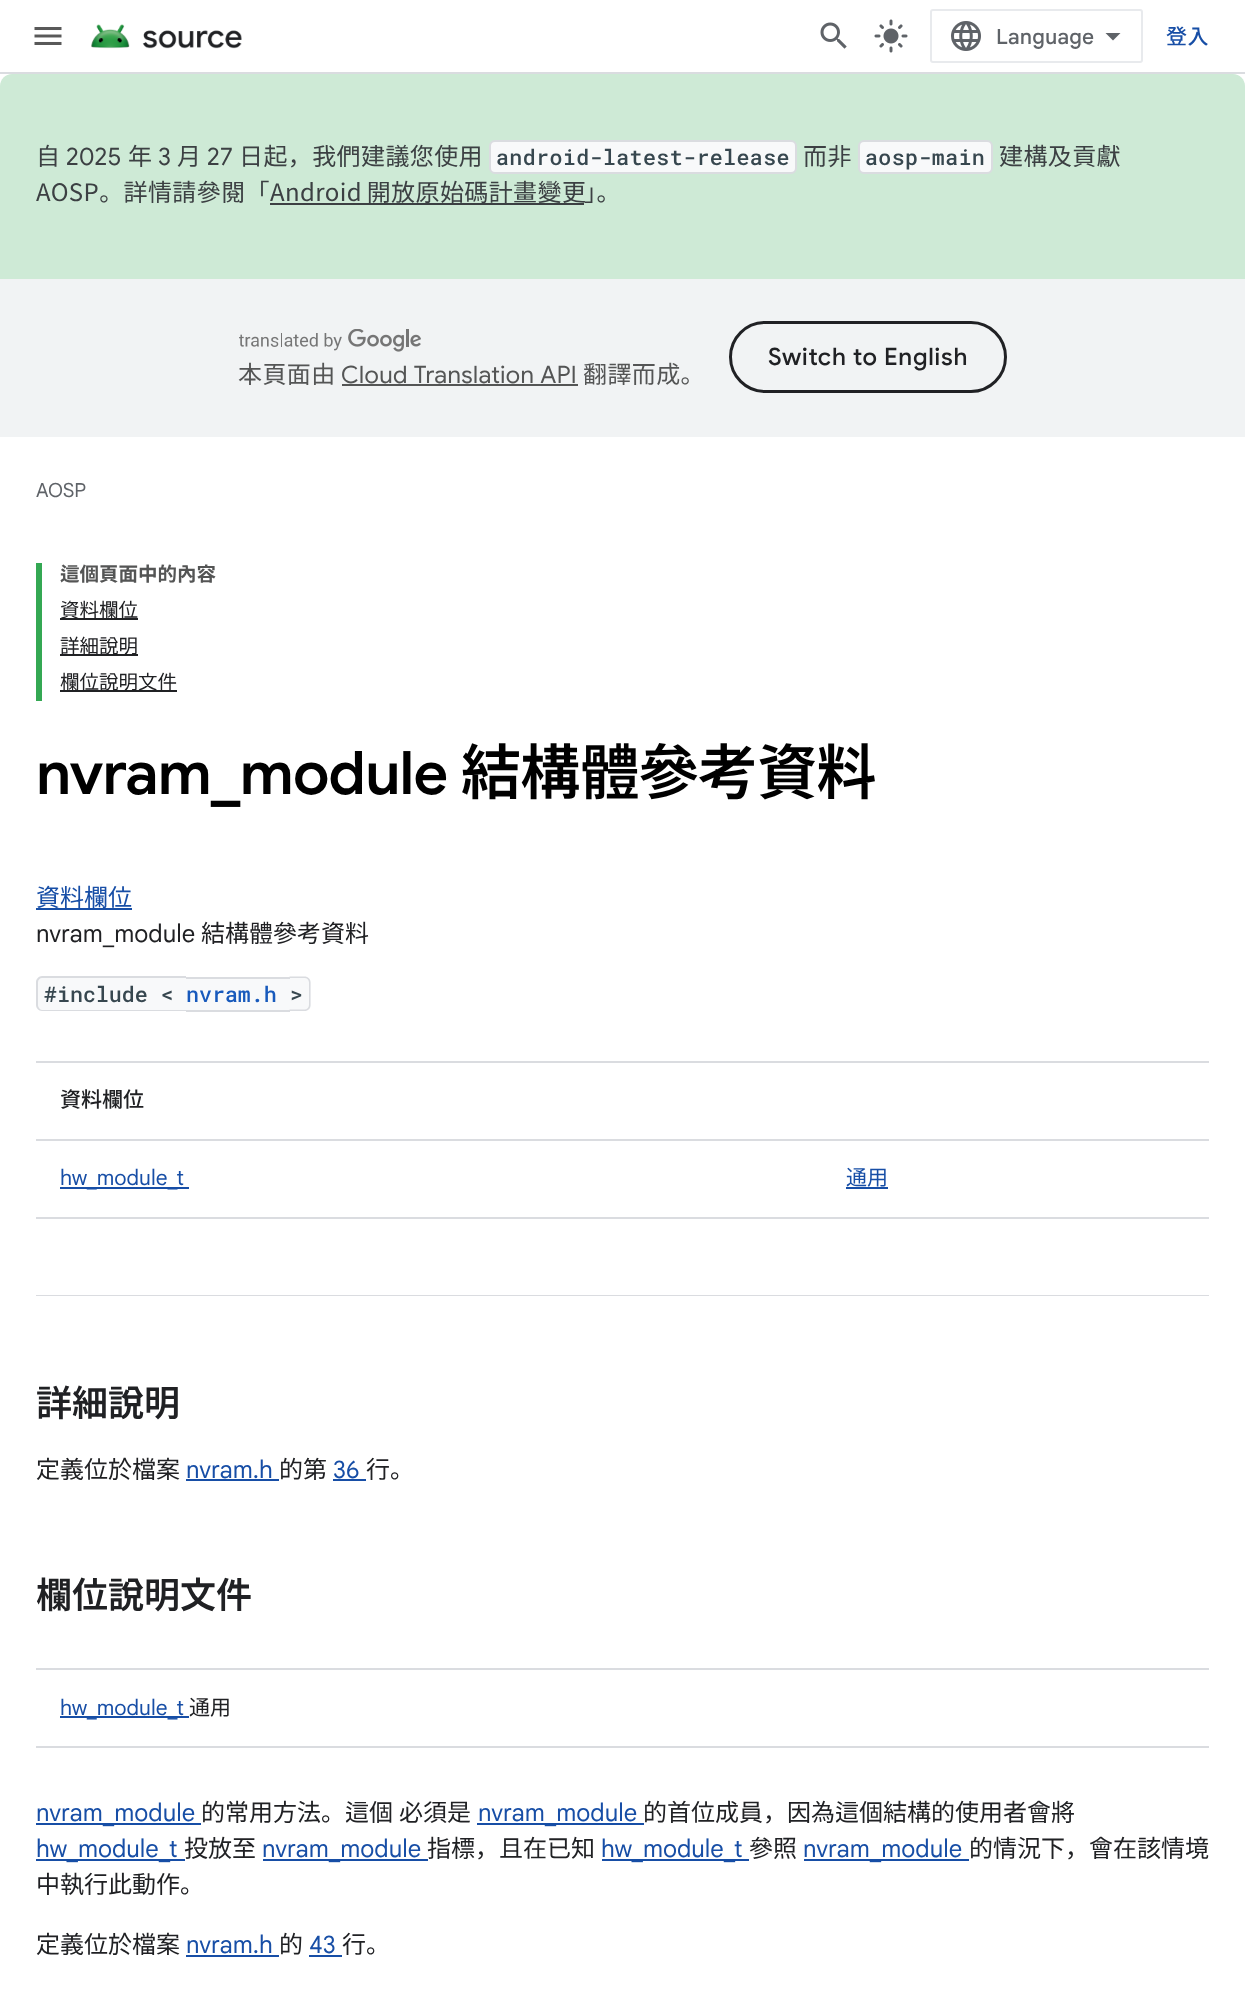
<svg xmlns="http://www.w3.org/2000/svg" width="1245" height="2012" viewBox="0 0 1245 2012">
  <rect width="100%" height="100%" fill="#ffffff"/>
  <rect x="0" y="72" width="1245" height="2" fill="#dadce0"/>
  <image x="34" y="27" width="28" height="18" href="img1.png"/>
  <image x="91" y="24" width="151" height="25" href="img2.png"/>
  <image x="820" y="22" width="27" height="27" href="img3.png"/>
  <image x="874" y="19" width="34" height="34" href="img4.png"/>
  <rect x="931" y="10" width="211" height="52" rx="2" fill="none" stroke="#e8eaed" stroke-width="2"/>
  <image x="951" y="21" width="30" height="30" href="img5.png"/>
  <text x="996" y="44" font-family="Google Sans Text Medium" font-size="21" font-weight="500" fill="#5f6368">Language</text>
  <path d="M1113 40.5L1105.5 33H1120.5Z" fill="#5f6368"/>
  <text x="1166" y="44" font-family="Noto Sans JP" font-size="21" font-weight="500" letter-spacing="0.4" fill="#174ea6">登入</text>
  <path d="M12 74H1233C1239.5 74 1245 79.5 1245 86V279H0V86C0 79.5 5.5 74 12 74Z" fill="#ceead6"/>
  <text x="36" y="165" font-family="Noto Sans JP" font-size="24" letter-spacing="0.4" fill="#3c4043">自</text>
  <text x="66" y="165" font-family="Google Sans" font-size="24" letter-spacing="0.4" fill="#3c4043">2025</text>
  <text x="128" y="165" font-family="Noto Sans JP" font-size="24" letter-spacing="0.4" fill="#3c4043">年</text>
  <text x="158" y="165" font-family="Google Sans" font-size="24" letter-spacing="0.4" fill="#3c4043">3</text>
  <text x="177" y="165" font-family="Noto Sans JP" font-size="24" letter-spacing="0.4" fill="#3c4043">月</text>
  <text x="207" y="165" font-family="Google Sans" font-size="24" letter-spacing="0.4" fill="#3c4043">27</text>
  <text x="239" y="165" font-family="Noto Sans JP" font-size="24" letter-spacing="0.4" fill="#3c4043">日起，我們建議您使用</text>
  <rect x="490" y="141" width="306" height="32" rx="5" fill="#f8f9fa" stroke="#dadce0" stroke-width="2"/>
  <text x="496" y="165" font-family="Roboto Mono" font-size="21.6" font-weight="500" letter-spacing="0.4" fill="#37474f">android-latest-release</text>
  <text x="803" y="165" font-family="Noto Sans JP" font-size="24" letter-spacing="0.4" fill="#3c4043">而非</text>
  <rect x="859" y="141" width="133" height="32" rx="5" fill="#f8f9fa" stroke="#dadce0" stroke-width="2"/>
  <text x="865" y="165" font-family="Roboto Mono" font-size="21.6" font-weight="500" letter-spacing="0.4" fill="#37474f">aosp-main</text>
  <text x="999" y="165" font-family="Noto Sans JP" font-size="24" letter-spacing="0.4" fill="#3c4043">建構及貢獻</text>
  <text x="36" y="201" font-family="Noto Sans JP" font-size="24" letter-spacing="0.4" fill="#3c4043">AOSP。詳情請參閱「</text>
  <text x="270" y="201" word-spacing="-1" font-family="Noto Sans JP" font-size="24" letter-spacing="0.4" fill="#3c4043">Android 開放原始碼計畫變更</text>
  <rect x="270" y="203" width="314" height="2" fill="#3c4043"/>
  <text x="584" y="201" font-family="Noto Sans JP" font-size="24" letter-spacing="0.4" fill="#3c4043">」。</text>
  <rect x="0" y="279" width="1245" height="158" fill="#f1f3f4"/>
  <rect x="730.5" y="322.5" width="275" height="69" rx="34.5" fill="none" stroke="#202124" stroke-width="3"/>
  <text x="768" y="365" font-family="Google Sans" font-size="24" font-weight="500" letter-spacing="0.75" fill="#202124">Switch to English</text>
  <image x="239" y="329" width="182" height="23" href="img6.png"/>
  <text x="238" y="383" font-family="Noto Sans JP" font-size="24" letter-spacing="0.4" fill="#545555">本頁面由</text>
  <text x="341" y="383" font-family="Google Sans" font-size="24" letter-spacing="0.4" fill="#545555">Cloud Translation API</text>
  <rect x="342" y="384" width="236" height="2" fill="#545555"/>
  <text x="583" y="383" font-family="Noto Sans JP" font-size="24" letter-spacing="0.4" fill="#545555">翻譯而成。</text>
  <text x="36" y="497" font-family="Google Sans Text" font-size="19.5" fill="#5f6368">AOSP</text>
  <rect x="36" y="563" width="6" height="138" fill="#34a853"/>
  <text x="60" y="581" font-family="Noto Sans JP" font-size="19.5" font-weight="bold" fill="#545555">這個頁面中的內容</text>
  <rect x="60" y="618" width="78" height="2" fill="#202124"/>
  <text x="60" y="617" font-family="Noto Sans JP" font-size="19.5" fill="#202124">資料欄位</text>
  <rect x="60" y="654" width="78" height="2" fill="#202124"/>
  <text x="60" y="653" font-family="Noto Sans JP" font-size="19.5" fill="#202124">詳細說明</text>
  <rect x="60" y="690" width="117" height="2" fill="#202124"/>
  <text x="60" y="689" font-family="Noto Sans JP" font-size="19.5" fill="#202124">欄位說明文件</text>
  <text x="36" y="794" font-family="Google Sans" font-size="60" font-weight="600" letter-spacing="-0.75" fill="#000000">nvram_module</text>
  <text x="461" y="794" font-family="Noto Sans JP" font-size="60" font-weight="600" letter-spacing="-0.75" fill="#000000">結構體參考資料</text>
  <text x="36" y="906" font-family="Noto Sans JP" font-size="24" fill="#174ea6">資料欄位</text>
  <rect x="36" y="908" width="96" height="2" fill="#174ea6"/>
  <text x="36" y="942" font-family="Google Sans Text" font-size="24" fill="#202124">nvram_module</text>
  <text x="201" y="942" font-family="Noto Sans JP" font-size="24" fill="#202124">結構體參考資料</text>
  <path d="M42 977H186V1011H42C38.5 1011 36 1008.5 36 1005V983C36 979.5 38.5 977 42 977Z" fill="#f8f9fa"/>
  <path d="M42 976H186V1011H42C39 1011 36 1008 36 1005V982C36 979 39 976 42 976ZM42 978H186V1010H42C40 1010 38 1007 38 1005V982C38 980 40 978 42 978Z" fill="#dadce0" fill-rule="evenodd"/>
  <text x="44" y="1002" font-family="Roboto Mono" font-size="21.6" font-weight="500" fill="#37474f">#include &lt;</text>
  <rect x="186" y="979" width="104" height="31" fill="#f8f9fa"/>
  <text x="186" y="1002" font-family="Roboto Mono" font-size="21.6" font-weight="500" fill="#185abc">nvram.h</text>
  <rect x="186" y="977" width="104" height="2" fill="#dadce0"/>
  <path d="M290 977H305C308.5 977 311 979.5 311 983V1005C311 1008.5 308.5 1011 305 1011H290Z" fill="#f8f9fa"/>
  <rect x="186" y="1010" width="104" height="2" fill="#dadce0"/>
  <path d="M289.5 976.5H304.5C308 976.5 310.5 979 310.5 982.5V1005C310.5 1008.5 308 1011 304.5 1011H289.5ZM289.5 978H304.5C307 978 309 980 309 982.5V1005C309 1007.5 307 1009.5 304.5 1009.5H289.5Z" fill="#dadce0" fill-rule="evenodd"/>
  <text x="290" y="1002" font-family="Roboto Mono" font-size="21.6" font-weight="500" fill="#37474f">&gt;</text>
  <rect x="36" y="1061" width="1173" height="2" fill="#dadce0"/>
  <rect x="36" y="1139" width="1173" height="2" fill="#dadce0"/>
  <text x="60" y="1107" font-family="Noto Sans JP" font-size="21" font-weight="500" fill="#202124">資料欄位</text>
  <rect x="36" y="1217" width="1173" height="2" fill="#dadce0"/>
  <rect x="60" y="1187" width="129" height="2" fill="#174ea6"/>
  <text x="60" y="1185" font-family="Google Sans Text" font-size="21" fill="#174ea6">hw_module_t</text>
  <text x="846" y="1185" font-family="Noto Sans JP" font-size="21" fill="#174ea6">通用</text>
  <rect x="846" y="1187" width="42" height="2" fill="#174ea6"/>
  <rect x="36" y="1295" width="1173" height="1" fill="#dadce0"/>
  <text x="36" y="1416" font-family="Noto Sans JP" font-size="36" font-weight="600" fill="#202124">詳細說明</text>
  <text x="36" y="1478" font-family="Noto Sans JP" font-size="24" fill="#202124">定義位於檔案</text>
  <text x="186" y="1478" font-family="Google Sans Text" font-size="24" fill="#174ea6">nvram.h</text>
  <rect x="186" y="1479" width="93" height="2" fill="#174ea6"/>
  <text x="279" y="1478" font-family="Noto Sans JP" font-size="24" fill="#202124">的第</text>
  <text x="333" y="1478" font-family="Google Sans Text" font-size="24" fill="#174ea6">36</text>
  <rect x="333" y="1479" width="33" height="2" fill="#174ea6"/>
  <text x="366" y="1478" font-family="Noto Sans JP" font-size="24" fill="#202124">行。</text>
  <text x="36" y="1608" font-family="Noto Sans JP" font-size="36" font-weight="600" fill="#202124">欄位說明文件</text>
  <rect x="36" y="1668" width="1173" height="2" fill="#dadce0"/>
  <rect x="36" y="1746" width="1173" height="2" fill="#dadce0"/>
  <rect x="60" y="1716" width="129" height="2" fill="#174ea6"/>
  <text x="60" y="1715" font-family="Google Sans Text" font-size="21" fill="#174ea6">hw_module_t</text>
  <text x="189" y="1715" font-family="Noto Sans JP" font-size="21" fill="#202124">通用</text>
  <rect x="36" y="1823" width="165" height="2" fill="#174ea6"/>
  <text x="36" y="1821" font-family="Google Sans Text" font-size="24" fill="#174ea6">nvram_module</text>
  <text x="201" y="1821" font-family="Noto Sans JP" font-size="24" fill="#202124">的常用方法。這個</text>
  <text x="399" y="1821" font-family="Noto Sans JP" font-size="24" fill="#202124">必須是</text>
  <rect x="477" y="1823" width="167" height="2" fill="#174ea6"/>
  <text x="478" y="1821" font-family="Google Sans Text" font-size="24" fill="#174ea6">nvram_module</text>
  <text x="643" y="1821" font-family="Noto Sans JP" font-size="24" fill="#202124">的首位成員，因為這個結構的使用者會將</text>
  <rect x="36" y="1859" width="149" height="2" fill="#174ea6"/>
  <text x="36" y="1857" font-family="Google Sans Text" font-size="24" fill="#174ea6">hw_module_t</text>
  <text x="184" y="1857" font-family="Noto Sans JP" font-size="24" fill="#202124">投放至</text>
  <rect x="263" y="1859" width="165" height="2" fill="#174ea6"/>
  <text x="262" y="1857" font-family="Google Sans Text" font-size="24" fill="#174ea6">nvram_module</text>
  <text x="427" y="1857" font-family="Noto Sans JP" font-size="24" fill="#202124">指標，且在已知</text>
  <rect x="602" y="1859" width="147" height="2" fill="#174ea6"/>
  <text x="601" y="1857" font-family="Google Sans Text" font-size="24" fill="#174ea6">hw_module_t</text>
  <text x="749" y="1857" font-family="Noto Sans JP" font-size="24" fill="#202124">參照</text>
  <rect x="804" y="1859" width="165" height="2" fill="#174ea6"/>
  <text x="803" y="1857" font-family="Google Sans Text" font-size="24" fill="#174ea6">nvram_module</text>
  <text x="969" y="1857" font-family="Noto Sans JP" font-size="24" fill="#202124">的情況下，會在該情境</text>
  <text x="36" y="1893" font-family="Noto Sans JP" font-size="24" fill="#202124">中執行此動作。</text>
  <text x="36" y="1953" font-family="Noto Sans JP" font-size="24" fill="#202124">定義位於檔案</text>
  <text x="186" y="1953" font-family="Google Sans Text" font-size="24" fill="#174ea6">nvram.h</text>
  <rect x="186" y="1955" width="93" height="2" fill="#174ea6"/>
  <text x="279" y="1953" font-family="Noto Sans JP" font-size="24" fill="#202124">的</text>
  <text x="309" y="1953" font-family="Google Sans Text" font-size="24" fill="#174ea6">43</text>
  <rect x="309" y="1955" width="33" height="2" fill="#174ea6"/>
  <text x="342" y="1953" font-family="Noto Sans JP" font-size="24" fill="#202124">行。</text>
</svg>
